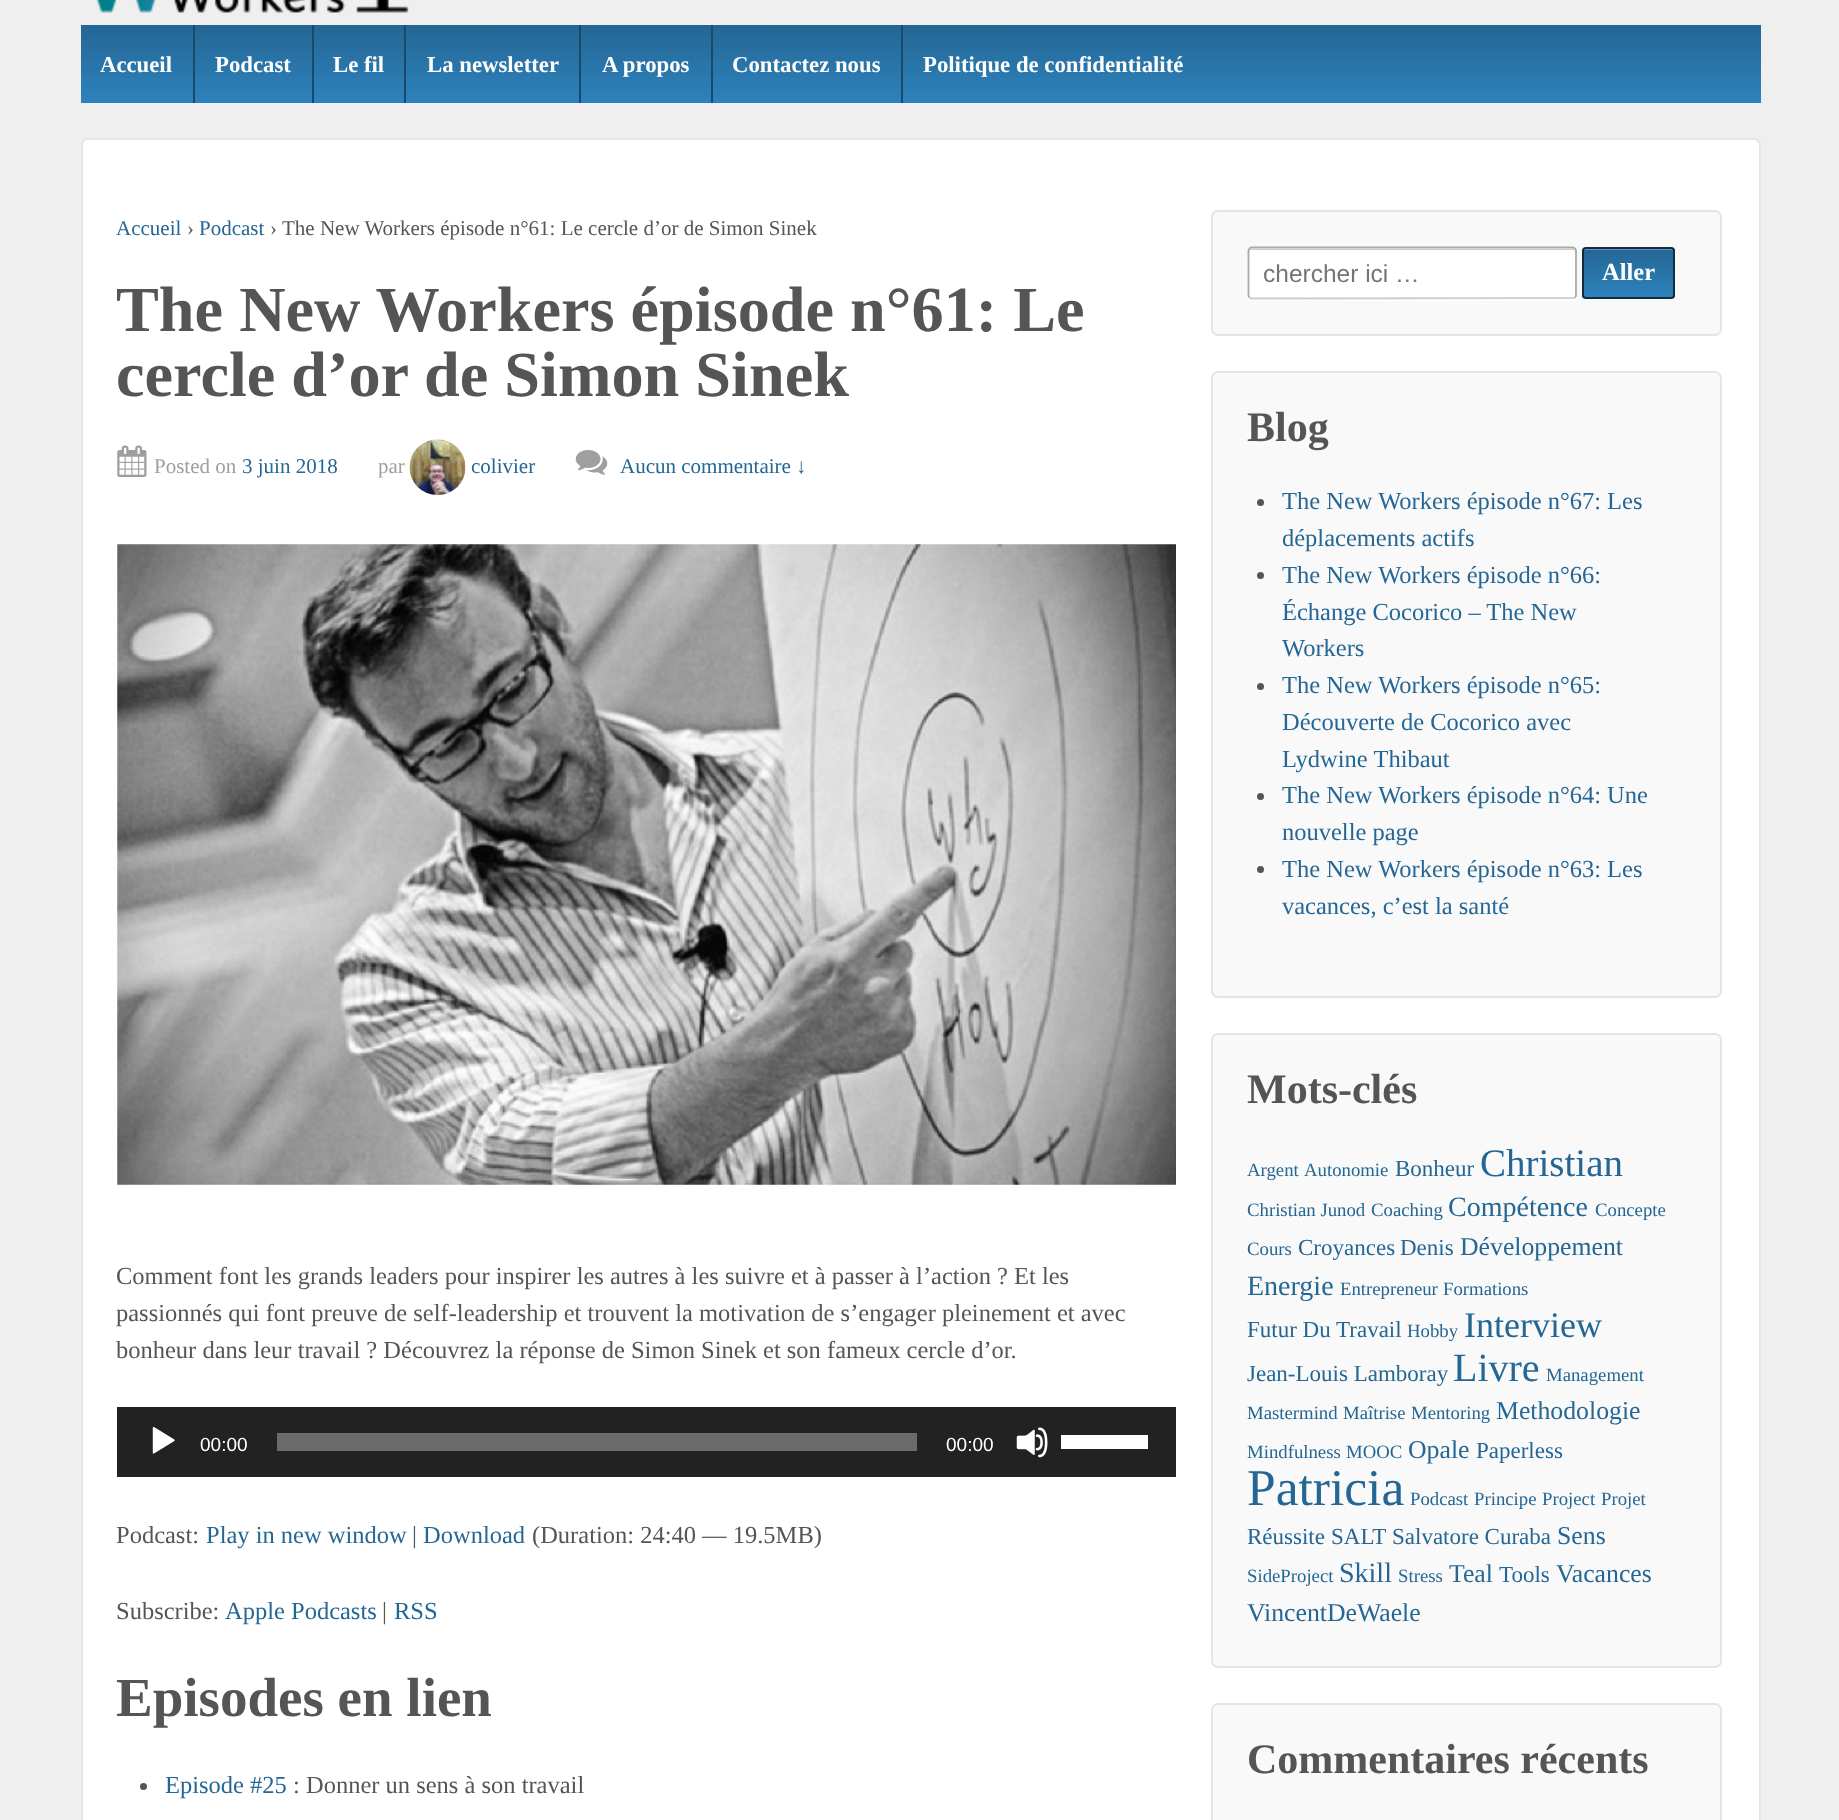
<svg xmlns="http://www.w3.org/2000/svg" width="1839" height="1820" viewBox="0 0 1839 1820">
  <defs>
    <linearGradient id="g1" gradientUnits="userSpaceOnUse" x1="921" y1="103" x2="921" y2="25"><stop offset="0" stop-color="#2e82bd"/><stop offset="1" stop-color="#246694"/></linearGradient>
    <clipPath id="clip1"><rect x="1264" y="259" width="297" height="28"/></clipPath>
    <clipPath id="clip2"><rect x="1582" y="247" width="93" height="52" rx="4"/></clipPath>
    <linearGradient id="g2" gradientUnits="userSpaceOnUse" x1="1628" y1="298" x2="1628" y2="249"><stop offset="0" stop-color="#2e82bd"/><stop offset="1" stop-color="#246694"/></linearGradient>
  </defs>
  <rect width="100%" height="100%" fill="#efefef"/>
  <image x="96" y="0" width="313" height="13" href="img1.png"/>
  <rect x="81" y="25" width="1680" height="78" fill="url(#g1)"/>
  <text x="100" y="72" font-family="Liberation Serif" font-size="22.75" font-weight="bold" fill="#ffffff">Accueil</text>
  <rect x="193" y="25" width="2" height="78" fill="#1a4a6b"/>
  <text x="215" y="72" font-family="Liberation Serif" font-size="22.75" font-weight="bold" fill="#ffffff">Podcast</text>
  <rect x="312" y="25" width="2" height="78" fill="#1a4a6b"/>
  <text x="333" y="72" font-family="Liberation Serif" font-size="22.75" font-weight="bold" fill="#ffffff">Le fil</text>
  <rect x="404" y="25" width="2" height="78" fill="#1a4a6b"/>
  <text x="427" y="72" font-family="Liberation Serif" font-size="22.75" font-weight="bold" fill="#ffffff">La newsletter</text>
  <rect x="579" y="25" width="2" height="78" fill="#1a4a6b"/>
  <text x="602" y="72" font-family="Liberation Serif" font-size="22.75" font-weight="bold" fill="#ffffff">A propos</text>
  <rect x="711" y="25" width="2" height="78" fill="#1a4a6b"/>
  <text x="732" y="72" font-family="Liberation Serif" font-size="22.75" font-weight="bold" fill="#ffffff">Contactez nous</text>
  <rect x="901" y="25" width="2" height="78" fill="#1a4a6b"/>
  <text x="923" y="72" font-family="Liberation Serif" font-size="22.75" font-weight="bold" fill="#ffffff">Politique de confidentialité</text>
  <rect x="82" y="139" width="1678" height="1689" rx="6" fill="#ffffff" stroke="#e5e5e5" stroke-width="2"/>
  <text x="116" y="235" font-family="Liberation Serif" font-size="21" fill="#246694">Accueil</text>
  <text x="187" y="235" font-family="Liberation Serif" font-size="21" fill="#555555">›</text>
  <text x="199" y="235" font-family="Liberation Serif" font-size="21" fill="#246694">Podcast</text>
  <text x="270" y="235" font-family="Liberation Serif" font-size="21" fill="#555555">›</text>
  <text x="282" y="235" font-family="Liberation Serif" font-size="21" fill="#555555">The New Workers épisode n°61: Le cercle d’or de Simon Sinek</text>
  <text x="116" y="331" font-family="Liberation Serif" font-size="64.25" font-weight="bold" fill="#555555">The New Workers épisode n°61: Le</text>
  <text x="116" y="396" font-family="Liberation Serif" font-size="64.25" font-weight="bold" fill="#555555">cercle d’or de Simon Sinek</text>
  <image x="117" y="445" width="30" height="32" href="img2.png"/>
  <text x="154" y="473" font-family="Liberation Serif" font-size="21" fill="#9f9f9f">Posted on</text>
  <text x="242" y="473" font-family="Liberation Serif" font-size="21" fill="#246694">3 juin 2018</text>
  <text x="378" y="473" font-family="Liberation Serif" font-size="21" fill="#9f9f9f">par</text>
  <image x="409" y="439" width="57" height="57" href="img3.png"/>
  <text x="471" y="473" font-family="Liberation Serif" font-size="21" fill="#246694">colivier</text>
  <image x="575" y="450" width="33" height="25" href="img4.png"/>
  <text x="620" y="473" font-family="Liberation Serif" font-size="21" fill="#246694">Aucun commentaire ↓</text>
  <image x="117" y="544" width="1059" height="641" href="img5.png"/>
  <text x="116" y="1284" font-family="Liberation Serif" font-size="24.5" fill="#555555">Comment font les grands leaders pour inspirer les autres à les suivre et à passer à l’action ? Et les</text>
  <text x="116" y="1321" font-family="Liberation Serif" font-size="24.5" fill="#555555">passionnés qui font preuve de self-leadership et trouvent la motivation de s’engager pleinement et avec</text>
  <text x="116" y="1358" font-family="Liberation Serif" font-size="24.5" fill="#555555">bonheur dans leur travail ? Découvrez la réponse de Simon Sinek et son fameux cercle d’or.</text>
  <rect x="117" y="1407" width="1059" height="70" fill="#222222"/>
  <image x="152" y="1426" width="23" height="28" href="img6.png"/>
  <text x="200" y="1451" font-family="Liberation Sans" font-size="19" fill="#ffffff">00:00</text>
  <rect x="277" y="1433" width="640" height="18" fill="#6b6b6b"/>
  <text x="946" y="1451" font-family="Liberation Sans" font-size="19" fill="#ffffff">00:00</text>
  <image x="1016" y="1427" width="32" height="31" href="img7.png"/>
  <rect x="1061" y="1435" width="87" height="14" fill="#ffffff"/>
  <text x="116" y="1543" font-family="Liberation Serif" font-size="24.5" fill="#555555">Podcast:</text>
  <text x="206" y="1543" font-family="Liberation Serif" font-size="24.5" fill="#246694">Play in new window</text>
  <text x="412" y="1543" font-family="Liberation Serif" font-size="24.5" fill="#555555">|</text>
  <text x="423" y="1543" font-family="Liberation Serif" font-size="24.5" fill="#246694">Download</text>
  <text x="532" y="1543" font-family="Liberation Serif" font-size="24.5" fill="#555555">(Duration: 24:40 — 19.5MB)</text>
  <text x="116" y="1619" font-family="Liberation Serif" font-size="24.5" fill="#555555">Subscribe:</text>
  <text x="225" y="1619" font-family="Liberation Serif" font-size="24.5" fill="#246694">Apple Podcasts</text>
  <text x="382" y="1619" font-family="Liberation Serif" font-size="24.5" fill="#555555">|</text>
  <text x="394" y="1619" font-family="Liberation Serif" font-size="24.5" fill="#246694">RSS</text>
  <text x="116" y="1716" font-family="Liberation Serif" font-size="55" font-weight="bold" fill="#555555">Episodes en lien</text>
  <circle cx="143.5" cy="1786.5" r="3.5" fill="#555555"/>
  <text x="165" y="1793" font-family="Liberation Serif" font-size="24.5" fill="#246694">Episode #25</text>
  <text x="293" y="1793" font-family="Liberation Serif" font-size="24.5" fill="#555555">: Donner un sens à son travail</text>
  <rect x="1212" y="211" width="509" height="124" rx="6" fill="#f9f9f9" stroke="#e5e5e5" stroke-width="2"/>
  <path d="M1248 297C1248 299 1250 301 1252 301H1573C1575 301 1577 299 1577 297V252V296C1577 298 1575 299 1573 299H1251C1250 299 1249 298 1248 297Z" fill="#ffffff"/>
  <rect x="1248" y="247" width="329" height="52" rx="4" fill="#ffffff"/>
  <path d="M1251 250H1573C1574 250 1575 251 1575 252C1575 251 1575 249 1573 249H1251L1250 250V252C1250 251 1250 250 1251 250Z" fill="#cccccc"/>
  <path d="M1575 297.5L1574.5 298L1305 298.5H1251L1249.5 297.5" fill="none" stroke="#cccccc" stroke-width="1.8"/>
  <path d="M1249.5 297.5L1248.5 296V250L1249.5 248.5L1251 247.5H1573L1575 248.5L1576 250V296L1575 297.5" fill="none" stroke="#aaaaaa" stroke-width="1.8"/>
  <g clip-path="url(#clip1)">
    <text x="1263" y="282" font-family="Liberation Sans" font-size="24.5" fill="#757575">chercher ici …</text>
  </g>
  <g clip-path="url(#clip2)">
    <rect x="1582" y="249" width="93" height="49" fill="url(#g2)"/>
  </g>
  <path d="M1586 250H1671C1672 250 1673 251 1673 252C1673 245 1659 249 1657 249H1600C1598 249 1584 245 1584 252C1584 251 1585 250 1586 250Z" fill="#ffffff" fill-opacity="0.3"/>
  <rect x="1583" y="248" width="91" height="50" rx="3" fill="none" stroke="#102d42" stroke-width="2"/>
  <text x="1602" y="280" font-family="Liberation Serif" font-size="24.5" font-weight="bold" fill="#ffffff">Aller</text>
  <rect x="1212" y="372" width="509" height="625" rx="6" fill="#f9f9f9" stroke="#e5e5e5" stroke-width="2"/>
  <text x="1247" y="441" font-family="Liberation Serif" font-size="42" font-weight="bold" fill="#555555">Blog</text>
  <circle cx="1260.5" cy="502.5" r="3.5" fill="#555555"/>
  <text x="1282" y="509" font-family="Liberation Serif" font-size="24.5" fill="#246694">The New Workers épisode n°67: Les</text>
  <text x="1282" y="546" font-family="Liberation Serif" font-size="24.5" fill="#246694">déplacements actifs</text>
  <circle cx="1260.5" cy="575.5" r="3.5" fill="#555555"/>
  <text x="1282" y="583" font-family="Liberation Serif" font-size="24.5" fill="#246694">The New Workers épisode n°66:</text>
  <text x="1282" y="620" font-family="Liberation Serif" font-size="24.5" fill="#246694">Échange Cocorico – The New</text>
  <text x="1282" y="656" font-family="Liberation Serif" font-size="24.5" fill="#246694">Workers</text>
  <circle cx="1260.5" cy="686.5" r="3.5" fill="#555555"/>
  <text x="1282" y="693" font-family="Liberation Serif" font-size="24.5" fill="#246694">The New Workers épisode n°65:</text>
  <text x="1282" y="730" font-family="Liberation Serif" font-size="24.5" fill="#246694">Découverte de Cocorico avec</text>
  <text x="1282" y="767" font-family="Liberation Serif" font-size="24.5" fill="#246694">Lydwine Thibaut</text>
  <circle cx="1260.5" cy="796.5" r="3.5" fill="#555555"/>
  <text x="1282" y="803" font-family="Liberation Serif" font-size="24.5" fill="#246694">The New Workers épisode n°64: Une</text>
  <text x="1282" y="840" font-family="Liberation Serif" font-size="24.5" fill="#246694">nouvelle page</text>
  <circle cx="1260.5" cy="869.5" r="3.5" fill="#555555"/>
  <text x="1282" y="877" font-family="Liberation Serif" font-size="24.5" fill="#246694">The New Workers épisode n°63: Les</text>
  <text x="1282" y="914" font-family="Liberation Serif" font-size="24.5" fill="#246694">vacances, c’est la santé</text>
  <rect x="1212" y="1034" width="509" height="633" rx="6" fill="#f9f9f9" stroke="#e5e5e5" stroke-width="2"/>
  <text x="1247" y="1103" font-family="Liberation Serif" font-size="42" font-weight="bold" fill="#555555">Mots-clés</text>
  <text x="1247" y="1176" font-family="Liberation Serif" font-size="18.75" fill="#246694">Argent</text>
  <text x="1304" y="1176" font-family="Liberation Serif" font-size="18.75" fill="#246694">Autonomie</text>
  <text x="1395" y="1176" font-family="Liberation Serif" font-size="23" fill="#246694">Bonheur</text>
  <text x="1480" y="1176" font-family="Liberation Serif" font-size="39" fill="#246694">Christian</text>
  <text x="1247" y="1216" font-family="Liberation Serif" font-size="18.75" fill="#246694">Christian Junod</text>
  <text x="1371" y="1216" font-family="Liberation Serif" font-size="18.75" fill="#246694">Coaching</text>
  <text x="1448" y="1216" font-family="Liberation Serif" font-size="28" fill="#246694">Compétence</text>
  <text x="1595" y="1216" font-family="Liberation Serif" font-size="18.75" fill="#246694">Concepte</text>
  <text x="1247" y="1255" font-family="Liberation Serif" font-size="18.75" fill="#246694">Cours</text>
  <text x="1298" y="1255" font-family="Liberation Serif" font-size="23" fill="#246694">Croyances</text>
  <text x="1400" y="1255" font-family="Liberation Serif" font-size="23" fill="#246694">Denis</text>
  <text x="1460" y="1255" font-family="Liberation Serif" font-size="25.75" fill="#246694">Développement</text>
  <text x="1247" y="1295" font-family="Liberation Serif" font-size="28" fill="#246694">Energie</text>
  <text x="1340" y="1295" font-family="Liberation Serif" font-size="18.75" fill="#246694">Entrepreneur</text>
  <text x="1443" y="1295" font-family="Liberation Serif" font-size="18.75" fill="#246694">Formations</text>
  <text x="1247" y="1337" font-family="Liberation Serif" font-size="23" fill="#246694">Futur Du Travail</text>
  <text x="1407" y="1337" font-family="Liberation Serif" font-size="18.75" fill="#246694">Hobby</text>
  <text x="1464" y="1337" font-family="Liberation Serif" font-size="36" fill="#246694">Interview</text>
  <text x="1247" y="1381" font-family="Liberation Serif" font-size="23" fill="#246694">Jean-Louis Lamboray</text>
  <text x="1453" y="1381" font-family="Liberation Serif" font-size="40" fill="#246694">Livre</text>
  <text x="1546" y="1381" font-family="Liberation Serif" font-size="18.75" fill="#246694">Management</text>
  <text x="1247" y="1419" font-family="Liberation Serif" font-size="18.75" fill="#246694">Mastermind</text>
  <text x="1343" y="1419" font-family="Liberation Serif" font-size="18.75" fill="#246694">Maîtrise</text>
  <text x="1411" y="1419" font-family="Liberation Serif" font-size="18.75" fill="#246694">Mentoring</text>
  <text x="1496" y="1419" font-family="Liberation Serif" font-size="25.75" fill="#246694">Methodologie</text>
  <text x="1247" y="1458" font-family="Liberation Serif" font-size="18.75" fill="#246694">Mindfulness</text>
  <text x="1346" y="1458" font-family="Liberation Serif" font-size="18.75" fill="#246694">MOOC</text>
  <text x="1408" y="1458" font-family="Liberation Serif" font-size="25.75" fill="#246694">Opale</text>
  <text x="1476" y="1458" font-family="Liberation Serif" font-size="23" fill="#246694">Paperless</text>
  <text x="1247" y="1505" font-family="Liberation Serif" font-size="51.5" fill="#246694">Patricia</text>
  <text x="1410" y="1505" font-family="Liberation Serif" font-size="18.75" fill="#246694">Podcast</text>
  <text x="1474" y="1505" font-family="Liberation Serif" font-size="18.75" fill="#246694">Principe</text>
  <text x="1542" y="1505" font-family="Liberation Serif" font-size="18.75" fill="#246694">Project</text>
  <text x="1601" y="1505" font-family="Liberation Serif" font-size="18.75" fill="#246694">Projet</text>
  <text x="1247" y="1544" font-family="Liberation Serif" font-size="23" fill="#246694">Réussite</text>
  <text x="1331" y="1544" font-family="Liberation Serif" font-size="23" fill="#246694">SALT</text>
  <text x="1392" y="1544" font-family="Liberation Serif" font-size="23" fill="#246694">Salvatore Curaba</text>
  <text x="1557" y="1544" font-family="Liberation Serif" font-size="25.75" fill="#246694">Sens</text>
  <text x="1247" y="1582" font-family="Liberation Serif" font-size="18.75" fill="#246694">SideProject</text>
  <text x="1339" y="1582" font-family="Liberation Serif" font-size="28" fill="#246694">Skill</text>
  <text x="1398" y="1582" font-family="Liberation Serif" font-size="18.75" fill="#246694">Stress</text>
  <text x="1449" y="1582" font-family="Liberation Serif" font-size="25.75" fill="#246694">Teal</text>
  <text x="1499" y="1582" font-family="Liberation Serif" font-size="23" fill="#246694">Tools</text>
  <text x="1556" y="1582" font-family="Liberation Serif" font-size="25.75" fill="#246694">Vacances</text>
  <text x="1247" y="1621" font-family="Liberation Serif" font-size="25.75" fill="#246694">VincentDeWaele</text>
  <rect x="1212" y="1704" width="509" height="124" rx="6" fill="#f9f9f9" stroke="#e5e5e5" stroke-width="2"/>
  <text x="1247" y="1773" font-family="Liberation Serif" font-size="42" font-weight="bold" fill="#555555">Commentaires récents</text>
</svg>
